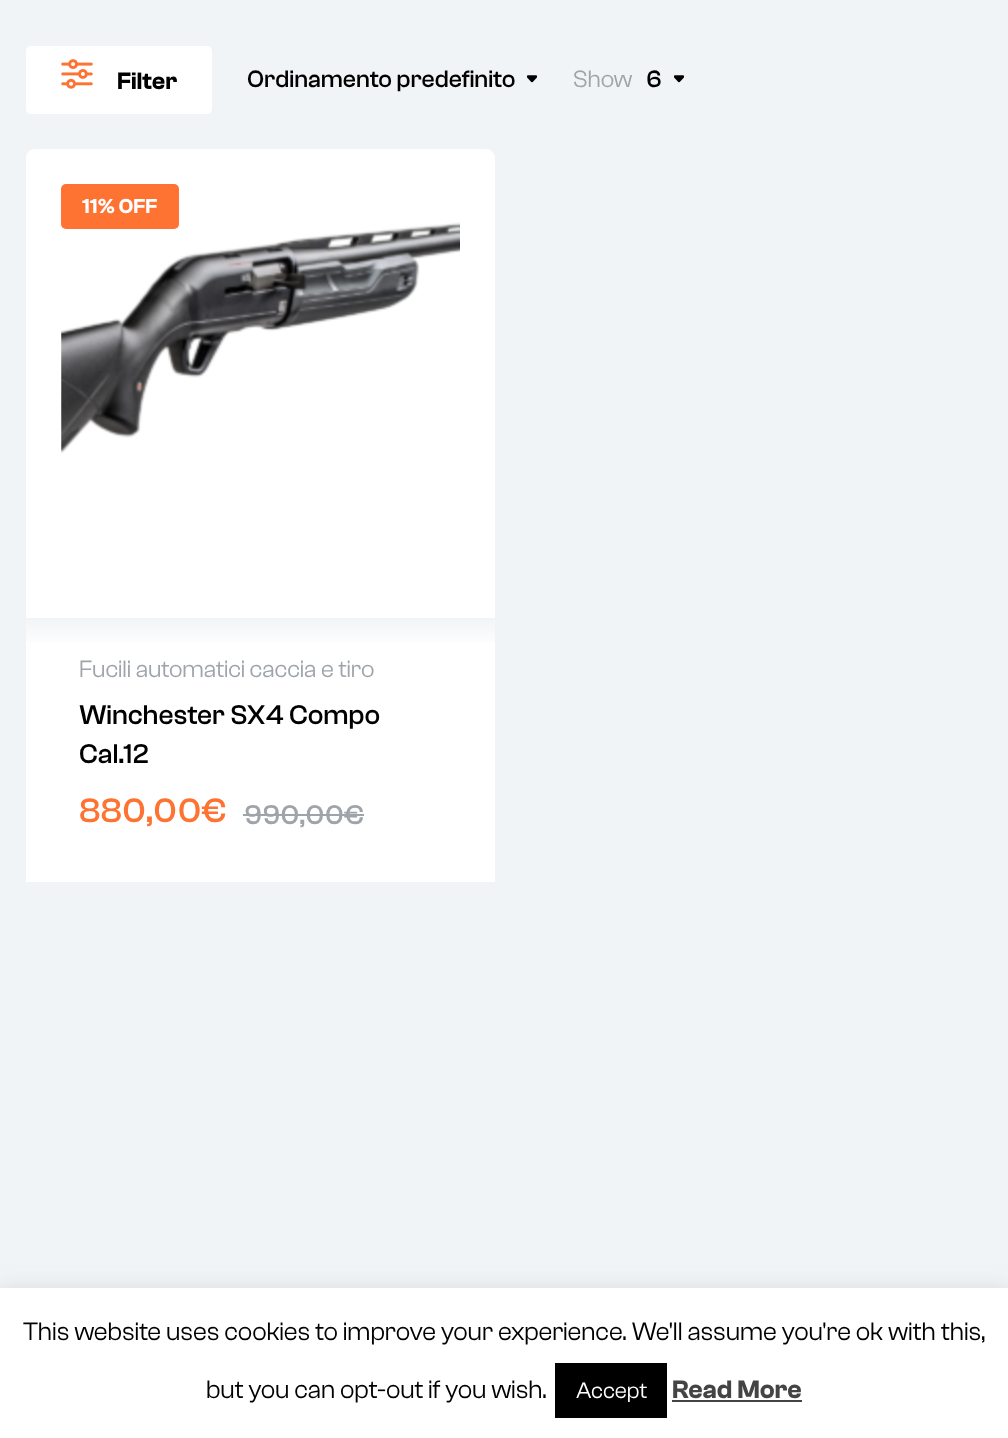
<svg xmlns="http://www.w3.org/2000/svg" width="1008" height="1438" viewBox="0 0 1008 1438">
  <defs>
    <linearGradient id="g1" gradientUnits="userSpaceOnUse" x1="261" y1="618" x2="261" y2="740"><stop offset="0" stop-color="#f1f4f6"/><stop offset="0.24" stop-color="#f1f4f6" stop-opacity="0"/></linearGradient>
    <filter id="blur1" x="-50%" y="-200%" width="200%" height="500%"><feGaussianBlur stdDeviation="9"/></filter>
  </defs>
  <rect width="100%" height="100%" fill="#f1f4f6"/>
  <rect x="26" y="46" width="186" height="68" rx="5" fill="#ffffff"/>
  <image x="61" y="59" width="32" height="30" href="img1.png"/>
  <text x="117" y="89" font-family="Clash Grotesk" font-size="24.5" font-weight="600" fill="#000000">Filter</text>
  <image x="527" y="75" width="10" height="8" href="img2.png"/>
  <text x="247" y="87" font-family="Clash Grotesk" font-size="24.5" font-weight="500" fill="#000000">Ordinamento predefinito</text>
  <text x="573" y="87" font-family="Clash Grotesk" font-size="24.5" fill="#9fa4aa">Show</text>
  <image x="674" y="75" width="10" height="8" href="img2.png"/>
  <text x="646" y="87" font-family="Clash Grotesk" font-size="24.5" font-weight="500" fill="#000000">6</text>
  <path d="M35 149H486C491 149 495 153 495 158V618H26V158C26 153 30 149 35 149Z" fill="#ffffff"/>
  <image x="61" y="222" width="399" height="232" href="img3.png"/>
  <rect x="61" y="184" width="118" height="45" rx="5" fill="#fe7232"/>
  <text x="82" y="213" font-family="Clash Grotesk" font-size="21" font-weight="600" fill="#ffffff">11% OFF</text>
  <rect x="26" y="618" width="469" height="264" fill="#ffffff"/>
  <rect x="26" y="618" width="469" height="25" fill="url(#g1)"/>
  <text x="79" y="677" font-family="Clash Grotesk" font-size="24.5" fill="#9fa4aa">Fucili automatici caccia e tiro</text>
  <text x="79" y="724" font-family="Clash Grotesk" font-size="28" font-weight="500" fill="#000000">Winchester SX4 Compo</text>
  <text x="79" y="763" font-family="Clash Grotesk" font-size="28" font-weight="500" fill="#000000">Cal.12</text>
  <text x="79" y="822" font-family="Clash Grotesk" font-size="35" font-weight="500" fill="#fe7232">880,00€</text>
  <text x="244" y="824" font-family="Clash Grotesk" font-size="28" font-weight="500" fill="#9fa4aa">990,00</text>
  <rect x="243" y="814" width="102" height="2" fill="#9fa4aa"/>
  <text x="344" y="824" font-family="Clash Grotesk" font-size="28" font-weight="500" fill="#9fa4aa">€</text>
  <rect x="345" y="814" width="19" height="2" fill="#9fa4aa"/>
  <rect x="0" y="1286" width="1008" height="151" fill="#acabab" fill-opacity="0.3" filter="url(#blur1)"/>
  <rect x="0" y="1288" width="1008" height="150" fill="#ffffff"/>
  <text x="23" y="1340" font-family="Clash Grotesk" font-size="26.25" fill="#000000">This website uses cookies to improve your experience. We'll assume you're ok with this,</text>
  <text x="206" y="1398" font-family="Clash Grotesk" font-size="26.25" fill="#000000">but you can opt-out if you wish.</text>
  <rect x="555" y="1363" width="112" height="55" fill="#000000"/>
  <text x="576" y="1398" font-family="Clash Grotesk" font-size="23" fill="#ffffff">Accept</text>
  <text x="672" y="1398" font-family="Clash Grotesk" font-size="26.25" font-weight="600" fill="#444444">Read More</text>
  <rect x="672" y="1400" width="130" height="2" fill="#444444"/>
</svg>
